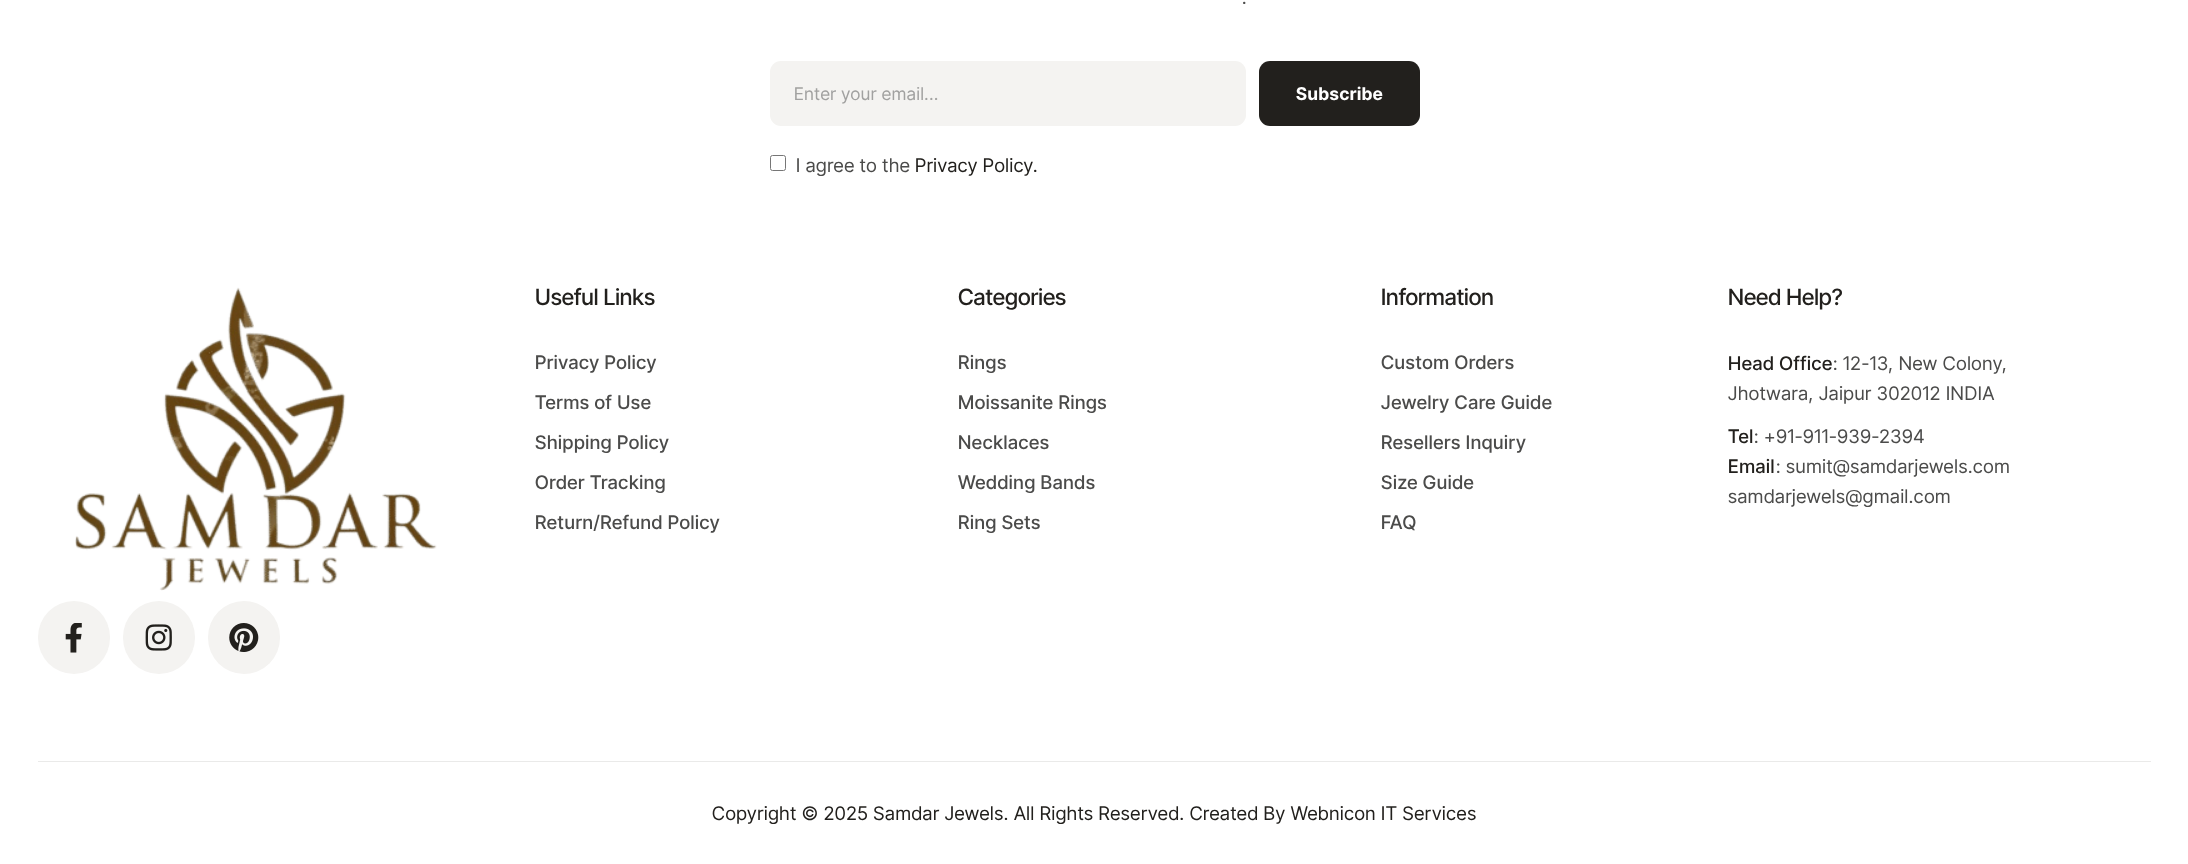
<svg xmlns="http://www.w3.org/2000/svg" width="2188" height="864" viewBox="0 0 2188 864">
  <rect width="100%" height="100%" fill="#ffffff"/>
  <text x="1242" y="4" font-family="Inter Tight" font-size="18.75" letter-spacing="0.62" fill="#4b4b4a">.</text>
  <rect x="770" y="61" width="476" height="65" rx="11" fill="#f4f3f1"/>
  <text x="794" y="100" font-family="Inter Tight" font-size="17.5" letter-spacing="0.62" fill="#a1a1a0">Enter your email...</text>
  <rect x="1259" y="61" width="161" height="65" rx="11" fill="#22201d"/>
  <text x="1296" y="100" font-family="Inter Tight" font-size="17.5" font-weight="bold" letter-spacing="0.62" fill="#ffffff">Subscribe</text>
  <rect x="770.5" y="155.5" width="15" height="15" rx="2" fill="none" stroke="#767676"/>
  <text x="796" y="172" font-family="Inter Tight" font-size="18.75" letter-spacing="0.62" fill="#4b4b4a">I agree to the</text>
  <text x="915" y="172" font-family="Inter Tight" font-size="18.75" letter-spacing="0.62" fill="#22201d">Privacy Policy.</text>
  <rect x="38" y="761" width="2113" height="1" fill="#eaeae9"/>
  <image x="75" y="287" width="362" height="304" href="img1.png"/>
  <rect x="38" y="601" width="72" height="73" rx="36" fill="#f4f3f1"/>
  <image x="65" y="623" width="17" height="30" href="img2.png"/>
  <rect x="123" y="601" width="72" height="73" rx="36" fill="#f4f3f1"/>
  <image x="145" y="624" width="27" height="27" href="img3.png"/>
  <rect x="208" y="601" width="72" height="73" rx="36" fill="#f4f3f1"/>
  <image x="229" y="623" width="30" height="29" href="img4.png"/>
  <text x="535" y="305" font-family="Inter Tight" font-size="22.5" font-weight="500" fill="#22201d">Useful Links</text>
  <text x="535" y="369" font-family="Inter Tight" font-size="18.75" font-weight="500" letter-spacing="0.62" fill="#4b4b4a">Privacy Policy</text>
  <text x="535" y="409" font-family="Inter Tight" font-size="18.75" font-weight="500" letter-spacing="0.62" fill="#4b4b4a">Terms of Use</text>
  <text x="535" y="449" font-family="Inter Tight" font-size="18.75" font-weight="500" letter-spacing="0.62" fill="#4b4b4a">Shipping Policy</text>
  <text x="535" y="489" font-family="Inter Tight" font-size="18.75" font-weight="500" letter-spacing="0.62" fill="#4b4b4a">Order Tracking</text>
  <text x="535" y="529" font-family="Inter Tight" font-size="18.75" font-weight="500" letter-spacing="0.62" fill="#4b4b4a">Return/Refund Policy</text>
  <text x="958" y="305" font-family="Inter Tight" font-size="22.5" font-weight="500" fill="#22201d">Categories</text>
  <text x="958" y="369" font-family="Inter Tight" font-size="18.75" font-weight="500" letter-spacing="0.62" fill="#4b4b4a">Rings</text>
  <text x="958" y="409" font-family="Inter Tight" font-size="18.75" font-weight="500" letter-spacing="0.62" fill="#4b4b4a">Moissanite Rings</text>
  <text x="958" y="449" font-family="Inter Tight" font-size="18.75" font-weight="500" letter-spacing="0.62" fill="#4b4b4a">Necklaces</text>
  <text x="958" y="489" font-family="Inter Tight" font-size="18.75" font-weight="500" letter-spacing="0.62" fill="#4b4b4a">Wedding Bands</text>
  <text x="958" y="529" font-family="Inter Tight" font-size="18.75" font-weight="500" letter-spacing="0.62" fill="#4b4b4a">Ring Sets</text>
  <text x="1381" y="305" font-family="Inter Tight" font-size="22.5" font-weight="500" fill="#22201d">Information</text>
  <text x="1381" y="369" font-family="Inter Tight" font-size="18.75" font-weight="500" letter-spacing="0.62" fill="#4b4b4a">Custom Orders</text>
  <text x="1381" y="409" font-family="Inter Tight" font-size="18.75" font-weight="500" letter-spacing="0.62" fill="#4b4b4a">Jewelry Care Guide</text>
  <text x="1381" y="449" font-family="Inter Tight" font-size="18.75" font-weight="500" letter-spacing="0.62" fill="#4b4b4a">Resellers Inquiry</text>
  <text x="1381" y="489" font-family="Inter Tight" font-size="18.75" font-weight="500" letter-spacing="0.62" fill="#4b4b4a">Size Guide</text>
  <text x="1381" y="529" font-family="Inter Tight" font-size="18.75" font-weight="500" letter-spacing="0.62" fill="#4b4b4a">FAQ</text>
  <text x="1728" y="305" font-family="Inter Tight" font-size="22.5" font-weight="500" fill="#22201d">Need Help?</text>
  <text x="1728" y="370" font-family="Inter Tight" font-size="18.75" font-weight="500" letter-spacing="0.62" fill="#22201d">Head Office</text>
  <text x="1833" y="370" font-family="Inter Tight" font-size="18.75" letter-spacing="0.62" fill="#4b4b4a">: 12-13, New Colony,</text>
  <text x="1728" y="400" font-family="Inter Tight" font-size="18.75" letter-spacing="0.62" fill="#4b4b4a">Jhotwara, Jaipur 302012 INDIA</text>
  <text x="1728" y="443" font-family="Inter Tight" font-size="18.75" font-weight="500" letter-spacing="0.62" fill="#22201d">Tel</text>
  <text x="1754" y="443" font-family="Inter Tight" font-size="18.75" letter-spacing="0.62" fill="#4b4b4a">: +91-911-939-2394</text>
  <text x="1728" y="473" font-family="Inter Tight" font-size="18.75" font-weight="500" letter-spacing="0.62" fill="#22201d">Email</text>
  <text x="1776" y="473" font-family="Inter Tight" font-size="18.75" letter-spacing="0.62" fill="#4b4b4a">: sumit@samdarjewels.com</text>
  <text x="1728" y="503" font-family="Inter Tight" font-size="18.75" letter-spacing="0.62" fill="#4b4b4a">samdarjewels@gmail.com</text>
  <text x="712" y="820" font-family="Inter Tight" font-size="18.75" letter-spacing="0.62" fill="#22201d">Copyright © 2025 Samdar Jewels. All Rights Reserved. Created By Webnicon IT Services</text>
</svg>
